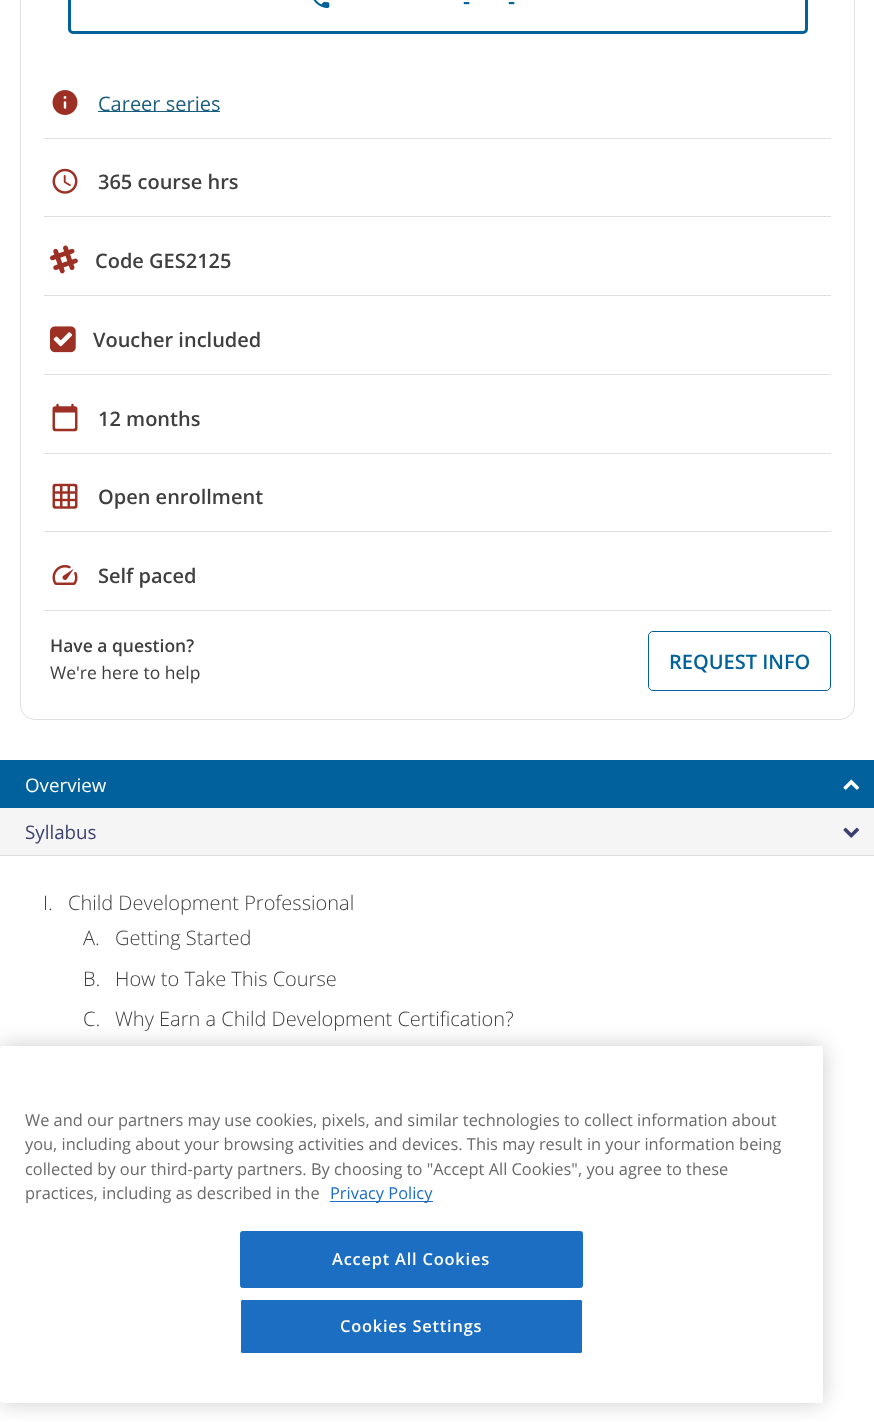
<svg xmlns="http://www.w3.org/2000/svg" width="874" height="1422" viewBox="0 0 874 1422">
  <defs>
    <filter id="blur1" x="-50%" y="-200%" width="200%" height="500%"><feGaussianBlur stdDeviation="11"/></filter>
  </defs>
  <rect width="100%" height="100%" fill="#ffffff"/>
  <rect x="20.5" y="-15.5" width="834" height="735" rx="14.5" fill="none" stroke="#dfdfdf"/>
  <rect x="69.5" y="-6.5" width="737" height="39" rx="3.5" fill="none" stroke="#006298" stroke-width="3"/>
  <image x="313" y="0" width="17" height="9" href="img1.png"/>
  <text x="463" y="9" font-family="Open Sans" font-size="22" font-weight="600" fill="#006298">-</text>
  <text x="508" y="9" font-family="Open Sans" font-size="22" font-weight="600" fill="#006298">-</text>
  <rect x="44" y="138" width="787" height="1" fill="#dfdfdf"/>
  <image x="52" y="90" width="26" height="25" href="img2.png"/>
  <rect x="98" y="111" width="122" height="1" fill="#1a5d7f"/>
  <text x="98" y="111" font-family="Open Sans" font-size="20" fill="#1a5d7f">Career series</text>
  <rect x="44" y="216" width="787" height="1" fill="#dfdfdf"/>
  <image x="52" y="168" width="26" height="26" href="img3.png"/>
  <text x="98" y="189" font-family="Open Sans" font-size="20" font-weight="600" fill="#3f3f3f">365 course hrs</text>
  <rect x="44" y="295" width="787" height="1" fill="#dfdfdf"/>
  <image x="50" y="245" width="28" height="29" href="img4.png"/>
  <text x="95" y="268" font-family="Open Sans" font-size="20" font-weight="600" fill="#3f3f3f">Code GES2125</text>
  <rect x="44" y="374" width="787" height="1" fill="#dfdfdf"/>
  <image x="50" y="326" width="26" height="27" href="img5.png"/>
  <text x="93" y="347" font-family="Open Sans" font-size="20" font-weight="600" fill="#3f3f3f">Voucher included</text>
  <rect x="44" y="453" width="787" height="1" fill="#dfdfdf"/>
  <image x="52" y="403" width="26" height="29" href="img6.png"/>
  <text x="98" y="426" font-family="Open Sans" font-size="20" font-weight="600" fill="#3f3f3f">12 months</text>
  <rect x="44" y="531" width="787" height="1" fill="#dfdfdf"/>
  <image x="52" y="483" width="26" height="26" href="img7.png"/>
  <text x="98" y="504" font-family="Open Sans" font-size="20" font-weight="600" fill="#3f3f3f">Open enrollment</text>
  <rect x="44" y="610" width="787" height="1" fill="#dfdfdf"/>
  <image x="52" y="565" width="26" height="20" href="img8.png"/>
  <text x="98" y="583" font-family="Open Sans" font-size="20" font-weight="600" fill="#3f3f3f">Self paced</text>
  <text x="50" y="652" font-family="Open Sans" font-size="17.5" font-weight="600" fill="#3f3f3f">Have a question?</text>
  <text x="50" y="679" font-family="Open Sans" font-size="17.5" fill="#3f3f3f">We're here to help</text>
  <rect x="648.5" y="631.5" width="182" height="59" rx="4.5" fill="none" stroke="#006298"/>
  <text x="669" y="669" font-family="Open Sans" font-size="20" font-weight="600" fill="#006298">REQUEST INFO</text>
  <rect x="0" y="760" width="874" height="48" fill="#00619c"/>
  <text x="25" y="792" font-family="Open Sans" font-size="18.75" fill="#ffffff">Overview</text>
  <image x="843" y="779" width="17" height="11" href="img9.png"/>
  <rect x="0" y="808" width="874" height="47" fill="#f5f5f5"/>
  <rect x="0" y="855" width="874" height="1" fill="#dddddd"/>
  <text x="25" y="839" font-family="Open Sans" font-size="18.75" fill="#3a3f6f">Syllabus</text>
  <image x="843" y="827" width="17" height="11" href="img10.png"/>
  <text x="43" y="910" font-family="Open Sans" font-size="20" font-weight="300" fill="#3f3f3f">I.</text>
  <text x="68" y="910" font-family="Open Sans" font-size="20" font-weight="300" fill="#3f3f3f">Child Development Professional</text>
  <text x="83" y="945" font-family="Open Sans" font-size="20" font-weight="300" fill="#3f3f3f">A.</text>
  <text x="115" y="945" font-family="Open Sans" font-size="20" font-weight="300" fill="#3f3f3f">Getting Started</text>
  <text x="83" y="986" font-family="Open Sans" font-size="20" font-weight="300" fill="#3f3f3f">B.</text>
  <text x="115" y="986" font-family="Open Sans" font-size="20" font-weight="300" fill="#3f3f3f">How to Take This Course</text>
  <text x="83" y="1026" font-family="Open Sans" font-size="20" font-weight="300" fill="#3f3f3f">C.</text>
  <text x="115" y="1026" font-family="Open Sans" font-size="20" font-weight="300" fill="#3f3f3f">Why Earn a Child Development Certification?</text>
  <rect x="0" y="1046" width="823" height="357" rx="3" fill="#000000" fill-opacity="0.2" filter="url(#blur1)"/>
  <rect x="0" y="1046" width="823" height="357" rx="3" fill="#ffffff"/>
  <text x="25" y="1126" font-family="Open Sans" font-size="16.4" fill="#696969">We and our partners may use cookies, pixels, and similar technologies to collect information about</text>
  <text x="25" y="1150" font-family="Open Sans" font-size="16.4" fill="#696969">you, including about your browsing activities and devices. This may result in your information being</text>
  <text x="25" y="1175" font-family="Open Sans" font-size="16.4" fill="#696969">collected by our third-party partners. By choosing to "Accept All Cookies", you agree to these</text>
  <text x="25" y="1199" font-family="Open Sans" font-size="16.4" fill="#696969">practices, including as described in the</text>
  <rect x="330" y="1201" width="103" height="1" fill="#1b6ec2"/>
  <text x="330" y="1199" font-family="Open Sans" font-size="16.4" fill="#1b6ec2">Privacy Policy</text>
  <rect x="240.5" y="1231.5" width="342" height="56" rx="2" fill="#1b6ec2" stroke="#1b6ec2"/>
  <text x="332" y="1265" font-family="Open Sans" font-size="16.4" font-weight="600" letter-spacing="0.8" fill="#ffffff">Accept All Cookies</text>
  <rect x="240.5" y="1299.5" width="342" height="54" rx="2" fill="#1b6ec2" stroke="#ffffff"/>
  <text x="340" y="1332" font-family="Open Sans" font-size="16.4" font-weight="600" letter-spacing="0.8" fill="#ffffff">Cookies Settings</text>
</svg>
